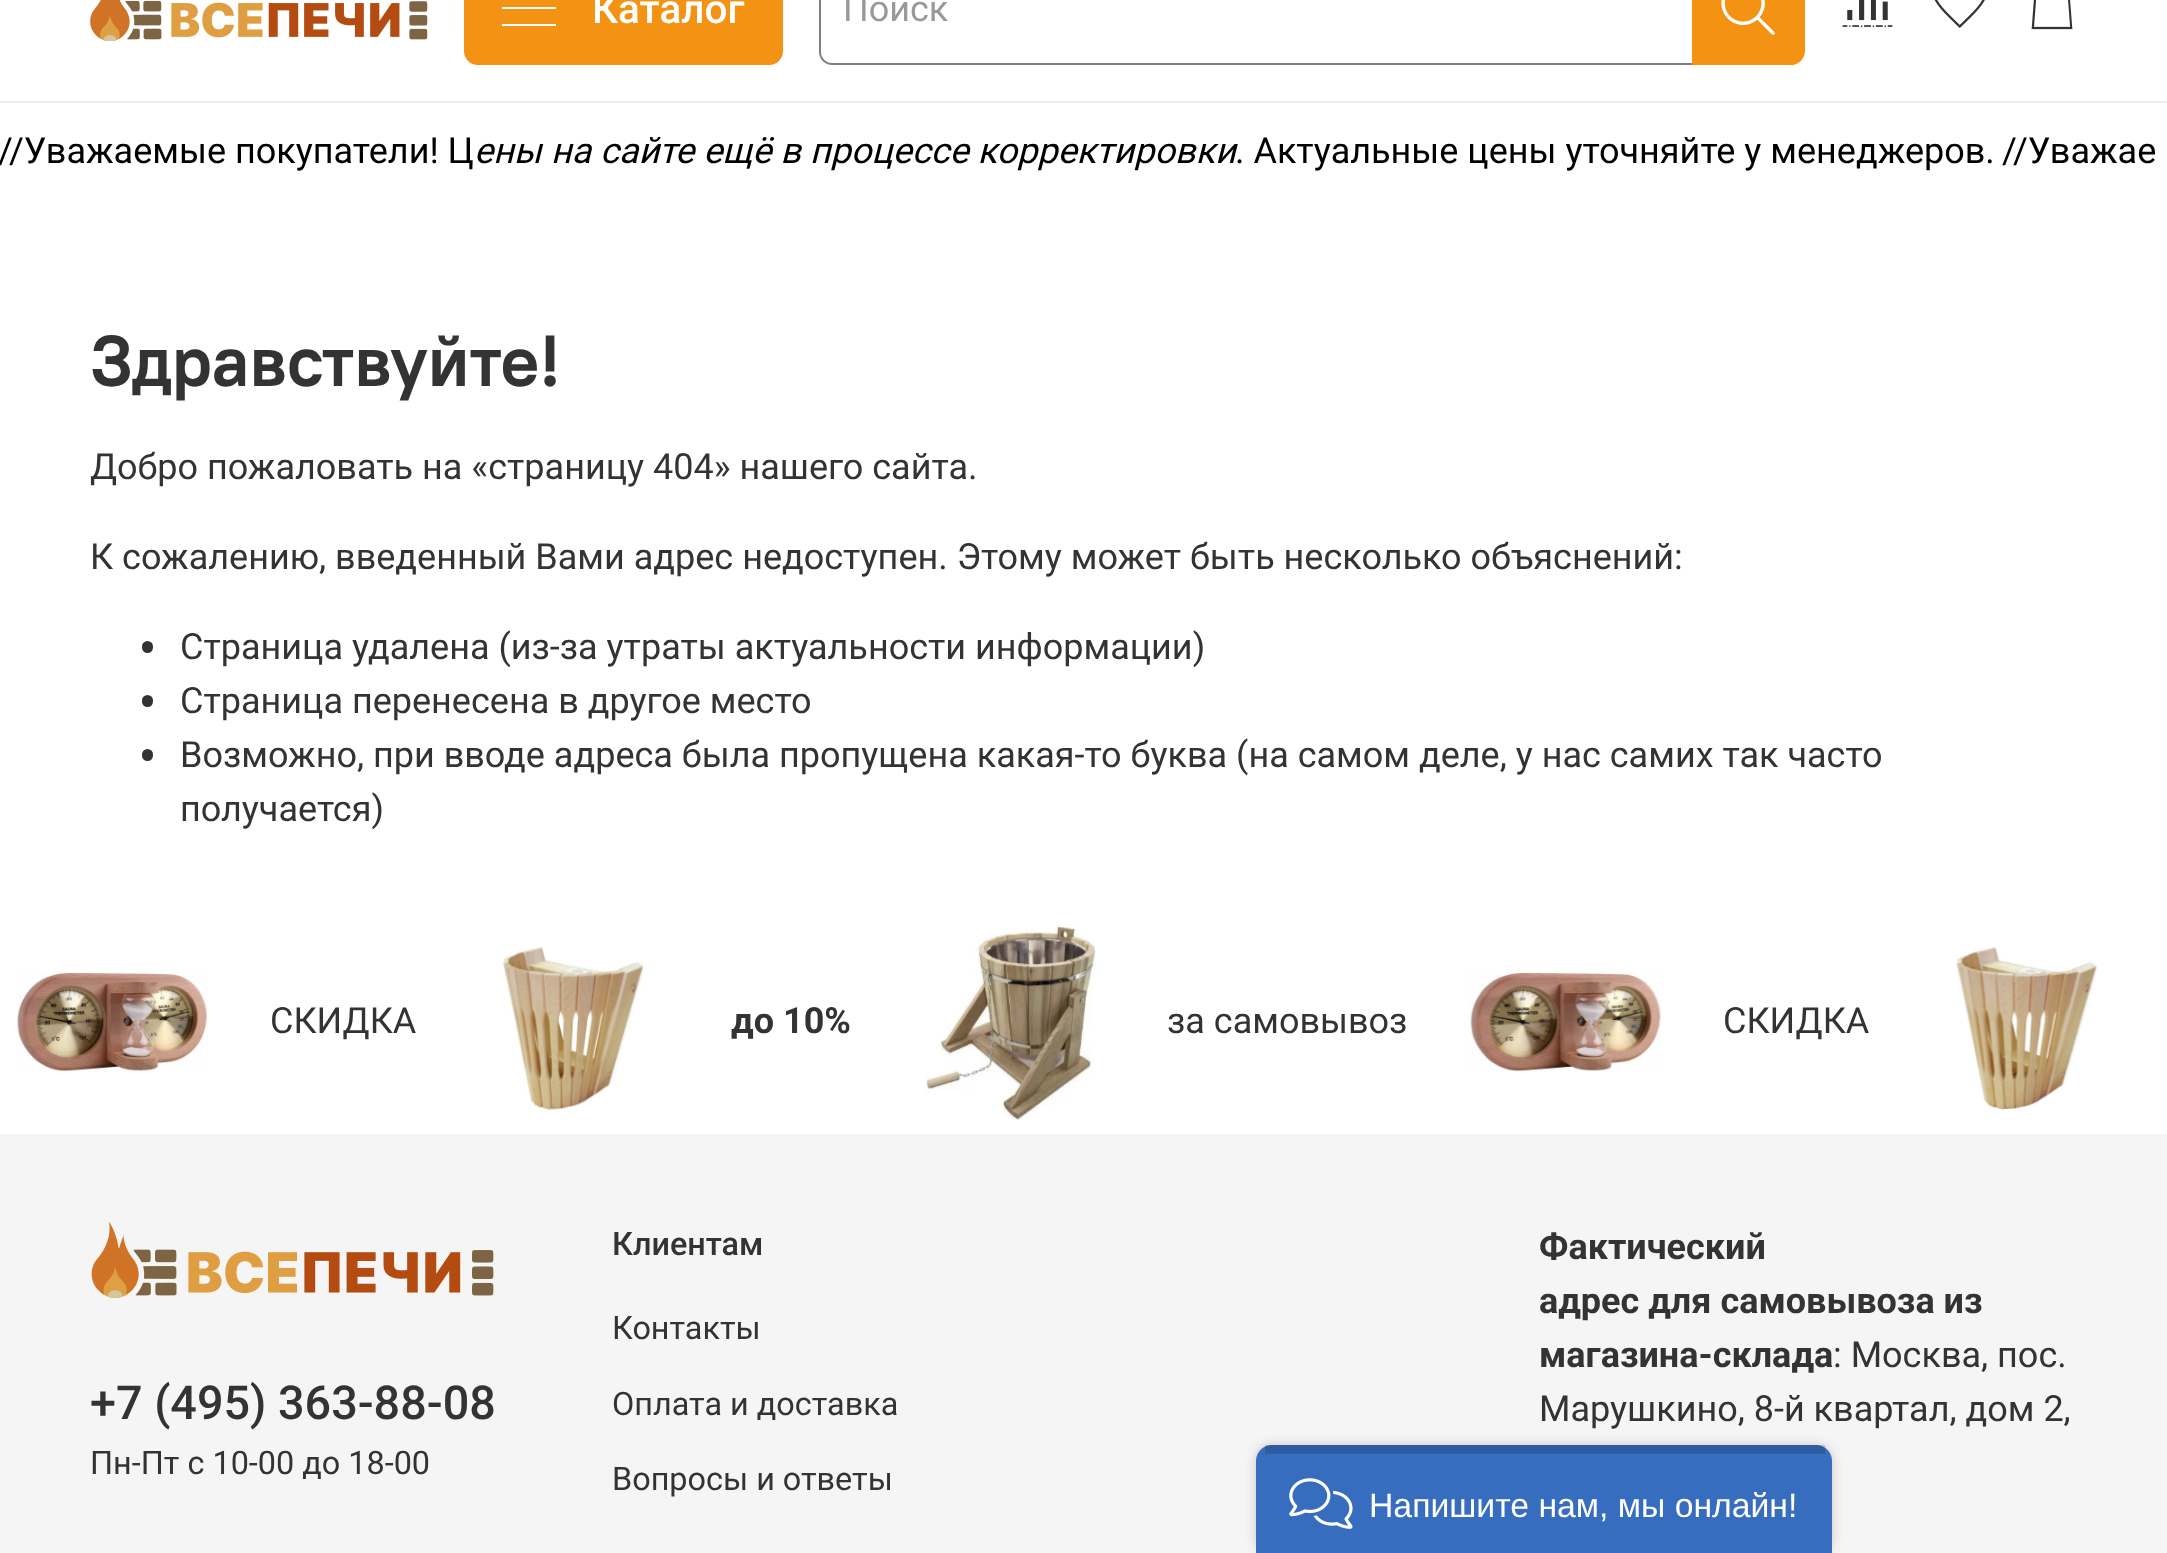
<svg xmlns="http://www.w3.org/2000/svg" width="2167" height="1553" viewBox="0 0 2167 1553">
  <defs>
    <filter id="blur1" x="-50%" y="-200%" width="200%" height="500%"><feGaussianBlur stdDeviation="5.5"/></filter>
  </defs>
  <rect width="100%" height="100%" fill="#ffffff"/>
  <rect x="0" y="101" width="2167" height="2" fill="#ededed"/>
  <image x="90" y="0" width="338" height="41" href="img1.png"/>
  <rect x="464" y="-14" width="319" height="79" rx="14" fill="#f39213"/>
  <path d="M502-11H556V-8H502ZM502 24H556V26H502ZM502 7H556V9H502Z" fill="#ffffff"/>
  <text x="592" y="23" font-family="Roboto" font-size="40.5" font-weight="500" fill="#ffffff">Каталог</text>
  <path d="M832-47H1692V65H832C825 65 819 59 819 52V-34C819-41 825-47 832-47ZM832-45H1692V63H832C826 63 821 58 821 52V-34C821-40 826-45 832-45Z" fill="#808080" fill-rule="evenodd"/>
  <text x="843" y="21" font-family="Roboto" font-size="36" fill="#999999">Поиск</text>
  <path d="M1692-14H1791C1798.5-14 1805-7.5 1805 0V51C1805 58.5 1798.5 65 1791 65H1692Z" fill="#f39213"/>
  <path d="M1692-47H1791C1798-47 1804-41 1804-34V52C1804 59 1798 65 1791 65H1692ZM1692-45H1791C1797-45 1802-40 1802-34V52C1802 58 1797 63 1791 63H1692Z" fill="#f39213" fill-rule="evenodd"/>
  <image x="1721" y="0" width="54" height="35" href="img2.png"/>
  <image x="1842" y="0" width="51" height="28" href="img3.png"/>
  <image x="1934" y="0" width="51" height="28" href="img4.png"/>
  <image x="2031" y="0" width="42" height="30" href="img5.png"/>
  <text x="-2" y="163" font-family="Roboto" font-size="36" fill="#000000">//Уважаемые покупатели! Ц</text>
  <text x="474" y="163" font-family="Roboto" font-size="36" font-style="italic" fill="#000000">ены на сайте ещё в процессе корректировки</text>
  <text x="1235" y="163" font-family="Roboto" font-size="36" fill="#000000">. Актуальные цены уточняйте у менеджеров.</text>
  <text x="2002" y="163" font-family="Roboto" font-size="36" fill="#000000">//Уважае</text>
  <text x="90" y="386" font-family="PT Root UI" font-size="72" font-weight="bold" fill="#333333">Здравствуйте!</text>
  <text x="90" y="479" font-family="Roboto" font-size="36" fill="#333333">Добро пожаловать на «страницу 404» нашего сайта.</text>
  <text x="90" y="569" font-family="Roboto" font-size="36" fill="#333333">К сожалению, введенный Вами адрес недоступен. Этому может быть несколько объяснений:</text>
  <rect x="142" y="641" width="11" height="12" rx="5.5" fill="#333333"/>
  <text x="180" y="659" font-family="Roboto" font-size="36" fill="#333333">Страница удалена (из-за утраты актуальности информации)</text>
  <rect x="142" y="695" width="11" height="12" rx="5.5" fill="#333333"/>
  <text x="180" y="713" font-family="Roboto" font-size="36" fill="#333333">Страница перенесена в другое место</text>
  <rect x="142" y="749" width="11" height="12" rx="5.5" fill="#333333"/>
  <text x="180" y="767" font-family="Roboto" font-size="36" fill="#333333">Возможно, при вводе адреса была пропущена какая-то буква (на самом деле, у нас самих так часто</text>
  <text x="180" y="821" font-family="Roboto" font-size="36" fill="#333333">получается)</text>
  <image x="17" y="971" width="191" height="101" href="img6.png"/>
  <text x="270" y="1033" font-family="Roboto" font-size="36" fill="#333333">СКИДКА</text>
  <image x="503" y="946" width="141" height="165" href="img7.png"/>
  <text x="731" y="1033" font-family="Roboto" font-size="36" font-weight="bold" fill="#333333">до 10%</text>
  <image x="926" y="924" width="171" height="196" href="img8.png"/>
  <text x="1167" y="1033" font-family="Roboto" font-size="36" fill="#333333">за самовывоз</text>
  <image x="1470" y="971" width="192" height="101" href="img9.png"/>
  <text x="1723" y="1033" font-family="Roboto" font-size="36" fill="#333333">СКИДКА</text>
  <image x="1956" y="947" width="141" height="163" href="img10.png"/>
  <rect x="0" y="1134" width="2167" height="419" fill="#f5f5f6"/>
  <image x="91" y="1222" width="403" height="76" href="img11.png"/>
  <text x="90" y="1419" font-family="Roboto" font-size="46.75" font-weight="500" fill="#333333">+7 (495) 363-88-08</text>
  <text x="90" y="1474" font-family="Roboto" font-size="32.4" fill="#333333">Пн-Пт с 10-00 до 18-00</text>
  <text x="612" y="1255" font-family="Roboto" font-size="32.4" font-weight="500" fill="#333333">Клиентам</text>
  <text x="612" y="1339" font-family="Roboto" font-size="32.4" fill="#333333">Контакты</text>
  <text x="612" y="1415" font-family="Roboto" font-size="32.4" fill="#333333">Оплата и доставка</text>
  <text x="612" y="1490" font-family="Roboto" font-size="32.4" fill="#333333">Вопросы и ответы</text>
  <text x="1539" y="1259" font-family="Roboto" font-size="36" font-weight="bold" fill="#333333">Фактический</text>
  <text x="1539" y="1313" font-family="Roboto" font-size="36" font-weight="bold" fill="#333333">адрес для самовывоза из</text>
  <text x="1539" y="1367" font-family="Roboto" font-size="36" font-weight="bold" fill="#333333">магазина-склада</text>
  <text x="1833" y="1367" font-family="Roboto" font-size="36" fill="#333333">: Москва, пос.</text>
  <text x="1539" y="1421" font-family="Roboto" font-size="36" fill="#333333">Марушкино, 8-й квартал, дом 2,</text>
  <rect x="1256" y="1445" width="576" height="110" rx="16" fill="#000000" fill-opacity="0.2" filter="url(#blur1)"/>
  <path d="M1272 1445H1816C1825 1445 1832 1452 1832 1461V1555H1256V1461C1256 1452 1263 1445 1272 1445Z" fill="#376dbf"/>
  <rect x="1265" y="1445" width="560" height="9" fill="#000000" fill-opacity="0.15"/>
  <image x="1289" y="1478" width="64" height="51" href="img12.png"/>
  <text x="1369" y="1517" font-family="Liberation Sans" font-size="33.75" fill="#ffffff">Напишите нам, мы онлайн!</text>
</svg>
